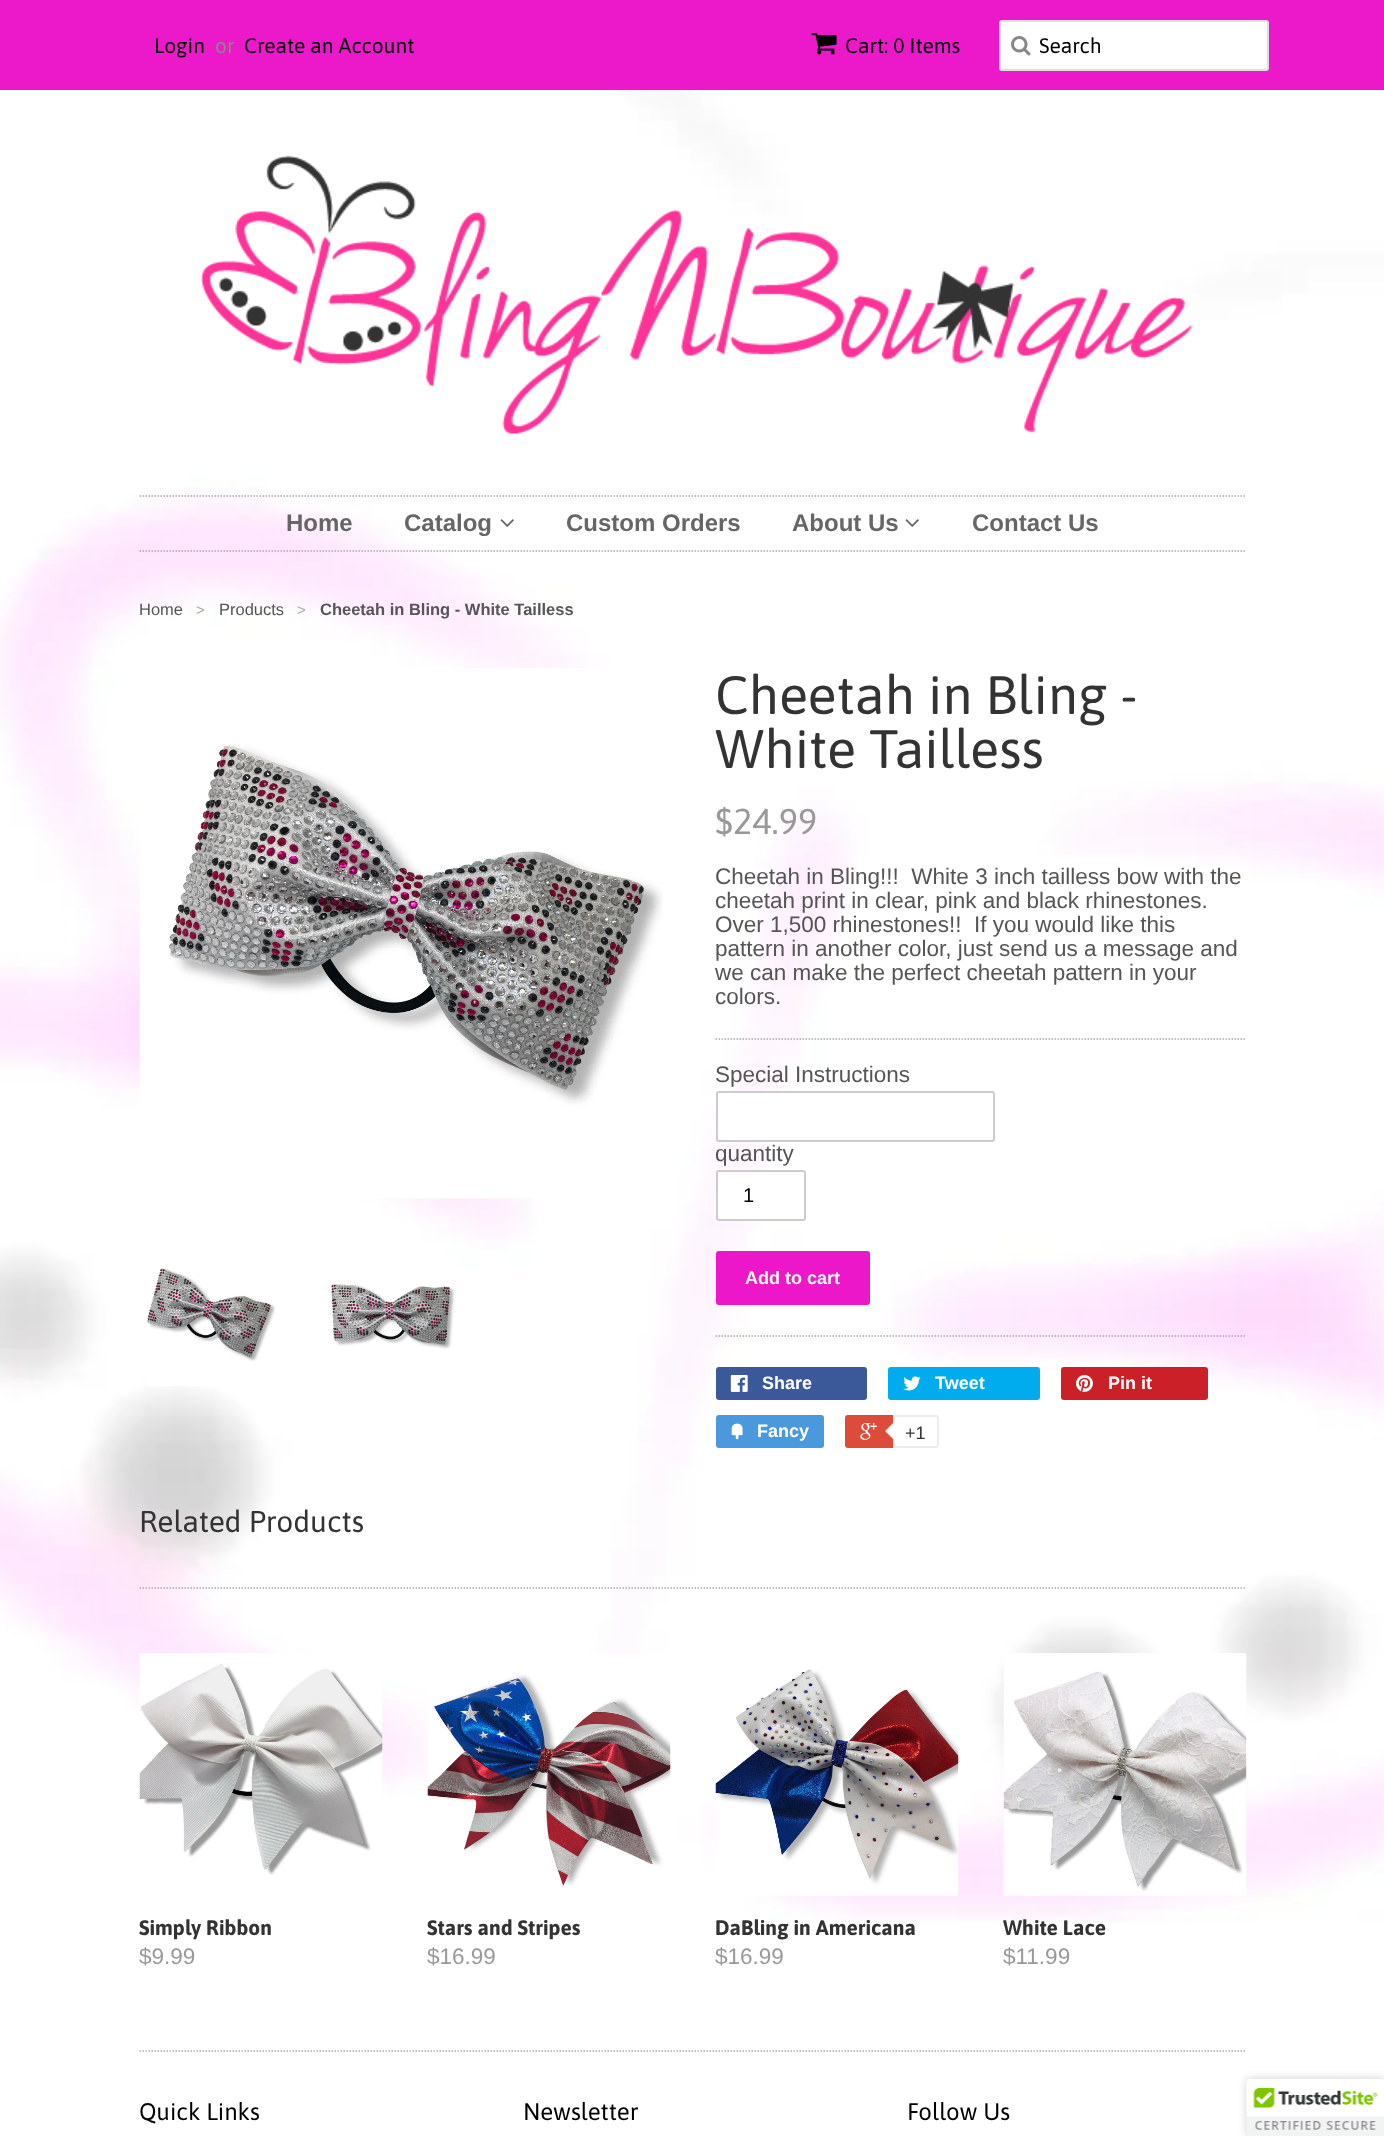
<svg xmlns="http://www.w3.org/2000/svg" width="1384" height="2136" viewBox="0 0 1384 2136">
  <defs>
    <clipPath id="clip1"><rect x="1040" y="33" width="222" height="24"/></clipPath>
    <filter id="blur1" x="-50%" y="-200%" width="200%" height="500%"><feGaussianBlur stdDeviation="4"/></filter>
  </defs>
  <rect width="100%" height="100%" fill="#ffffff"/>
  <image x="0" y="90" width="1384" height="1833" href="img1.png"/>
  <rect x="0" y="0" width="1384" height="90" fill="#eb19c9"/>
  <text x="154" y="53" font-family="Asap" font-size="21" fill="#000000">Login</text>
  <text x="215" y="53" font-family="Asap" font-size="21" fill="#888888">or</text>
  <text x="244" y="53" font-family="Asap" font-size="21" fill="#000000">Create an Account</text>
  <image x="811" y="33" width="26" height="22" href="img2.png"/>
  <text x="845" y="53" font-family="Asap" font-size="21" fill="#000000">Cart: 0 Items</text>
  <rect x="1000" y="21" width="268" height="49" rx="2" fill="#ffffff" stroke="#dddddd" stroke-width="2"/>
  <image x="1011" y="36" width="20" height="20" href="img3.png"/>
  <g clip-path="url(#clip1)">
    <text x="1039" y="53" font-family="Asap" font-size="21" fill="#000000">Search</text>
  </g>
  <image x="200" y="155" width="993" height="279" href="img4.png"/>
  <path d="M139.5 496H1246.5" fill="none" stroke="#aaaaaa" stroke-width="1.5" stroke-dasharray="1.5 1.5"/>
  <path d="M139.5 551H1246.5" fill="none" stroke="#aaaaaa" stroke-width="1.5" stroke-dasharray="1.5 1.5"/>
  <text x="286" y="531" font-family="Liberation Sans" font-size="24" font-weight="bold" fill="#666666">Home</text>
  <text x="404" y="531" font-family="Liberation Sans" font-size="24" font-weight="bold" fill="#666666">Catalog</text>
  <image x="500" y="519" width="14" height="8" href="img5.png"/>
  <text x="566" y="531" font-family="Liberation Sans" font-size="24" font-weight="bold" fill="#666666">Custom Orders</text>
  <text x="792" y="531" font-family="Liberation Sans" font-size="24" font-weight="bold" fill="#666666">About Us</text>
  <image x="905" y="519" width="14" height="8" href="img5.png"/>
  <text x="972" y="531" font-family="Liberation Sans" font-size="24" font-weight="bold" fill="#666666">Contact Us</text>
  <text x="139" y="615" font-family="Liberation Sans" font-size="16.5" fill="#555555">Home</text>
  <text x="196" y="615" font-family="Liberation Sans" font-size="15" fill="#aaaaa9">&gt;</text>
  <text x="219" y="615" font-family="Liberation Sans" font-size="16.5" fill="#555555">Products</text>
  <text x="297" y="615" font-family="Liberation Sans" font-size="15" fill="#aaaaa9">&gt;</text>
  <text x="320" y="615" font-family="Liberation Sans" font-size="16.5" font-weight="bold" fill="#555555">Cheetah in Bling - White Tailless</text>
  <image x="139" y="668" width="524" height="531" href="img6.png"/>
  <image x="147" y="1268" width="128" height="118" href="img7.png"/>
  <image x="331" y="1283" width="124" height="66" href="img8.png"/>
  <text x="715" y="714" font-family="Asap" font-size="54" fill="#333333">Cheetah in Bling -</text>
  <text x="715" y="768" font-family="Asap" font-size="54" fill="#333333">White Tailless</text>
  <text x="715" y="834" font-family="Asap" font-size="36" fill="#999999">$24.99</text>
  <text x="715" y="884" font-family="Liberation Sans" font-size="22.5" fill="#555555" xml:space="preserve">Cheetah in Bling!!!  White 3 inch tailless bow with the</text>
  <text x="715" y="908" font-family="Liberation Sans" font-size="22.5" fill="#555555">cheetah print in clear, pink and black rhinestones.</text>
  <text x="715" y="932" font-family="Liberation Sans" font-size="22.5" fill="#555555" xml:space="preserve">Over 1,500 rhinestones!!  If you would like this</text>
  <text x="715" y="956" font-family="Liberation Sans" font-size="22.5" fill="#555555">pattern in another color, just send us a message and</text>
  <text x="715" y="980" font-family="Liberation Sans" font-size="22.5" fill="#555555">we can make the perfect cheetah pattern in your</text>
  <text x="715" y="1004" font-family="Liberation Sans" font-size="22.5" fill="#555555">colors.</text>
  <path d="M715.5 1039H1246.5" fill="none" stroke="#aaaaaa" stroke-width="1.5" stroke-dasharray="1.5 1.5"/>
  <path d="M715.5 1336H1246.5" fill="none" stroke="#aaaaaa" stroke-width="1.5" stroke-dasharray="1.5 1.5"/>
  <text x="715" y="1082" font-family="Liberation Sans" font-size="22.5" fill="#555555">Special Instructions</text>
  <rect x="717" y="1092" width="277" height="49" rx="2" fill="#ffffff" stroke="#cccccc" stroke-width="2"/>
  <text x="715" y="1161" font-family="Liberation Sans" font-size="22.5" fill="#555555">quantity</text>
  <rect x="717" y="1171" width="88" height="49" rx="2" fill="#ffffff" stroke="#cccccc" stroke-width="2"/>
  <text x="743" y="1202" font-family="Liberation Sans" font-size="20" fill="#000000">1</text>
  <rect x="716" y="1251" width="154" height="54" rx="3" fill="#eb17c8"/>
  <text x="745" y="1284" font-family="Liberation Sans" font-size="18" font-weight="bold" fill="#ffffff">Add to cart</text>
  <rect x="716" y="1367" width="151" height="33" rx="3" fill="#3b5998"/>
  <image x="730" y="1375" width="18" height="17" href="img9.png"/>
  <text x="762" y="1389" font-family="Liberation Sans" font-size="18" font-weight="bold" fill="#ffffff">Share</text>
  <rect x="888" y="1367" width="152" height="33" rx="3" fill="#00aced"/>
  <image x="903" y="1376" width="18" height="15" href="img10.png"/>
  <text x="935" y="1389" font-family="Liberation Sans" font-size="18" font-weight="bold" fill="#ffffff">Tweet</text>
  <rect x="1061" y="1367" width="147" height="33" rx="3" fill="#cb2027"/>
  <image x="1076" y="1375" width="17" height="17" href="img11.png"/>
  <text x="1108" y="1389" font-family="Liberation Sans" font-size="18" font-weight="bold" fill="#ffffff">Pin it</text>
  <rect x="716" y="1415" width="108" height="33" rx="3" fill="#4999dc"/>
  <image x="731" y="1423" width="12" height="17" href="img12.png"/>
  <text x="757" y="1437" font-family="Liberation Sans" font-size="18" font-weight="bold" fill="#ffffff">Fancy</text>
  <rect x="845" y="1415" width="91" height="33" rx="3" fill="#dd4b39"/>
  <image x="860" y="1423" width="17" height="17" href="img13.png"/>
  <path d="M894 1416H936C937 1416 938 1417 938 1418V1445C938 1446 937 1447 936 1447H894Z" fill="#ffffff" stroke="#ececec" stroke-width="2"/>
  <path d="M894 1422V1440L885 1431Z" fill="#ececec"/>
  <path d="M895.5 1422V1440L886.5 1431Z" fill="#ffffff"/>
  <text x="905" y="1439" font-family="Liberation Sans" font-size="18" fill="#333333">+1</text>
  <path d="M139.5 1588H1246.5" fill="none" stroke="#aaaaaa" stroke-width="1.5" stroke-dasharray="1.5 1.5"/>
  <text x="139" y="1532" font-family="Asap" font-size="30" fill="#333333">Related Products</text>
  <image x="139" y="1653" width="244" height="222" href="img14.png"/>
  <text x="139" y="1935" font-family="Asap" font-size="21" font-weight="bold" fill="#333333">Simply Ribbon</text>
  <text x="139" y="1964" font-family="Liberation Sans" font-size="22.5" fill="#999999">$9.99</text>
  <image x="427" y="1654" width="244" height="232" href="img15.png"/>
  <text x="427" y="1935" font-family="Asap" font-size="21" font-weight="bold" fill="#333333">Stars and Stripes</text>
  <text x="427" y="1964" font-family="Liberation Sans" font-size="22.5" fill="#999999">$16.99</text>
  <image x="715" y="1669" width="244" height="227" href="img16.png"/>
  <text x="715" y="1935" font-family="Asap" font-size="21" font-weight="bold" fill="#333333">DaBling in Americana</text>
  <text x="715" y="1964" font-family="Liberation Sans" font-size="22.5" fill="#999999">$16.99</text>
  <image x="1003" y="1653" width="244" height="243" href="img17.png"/>
  <text x="1003" y="1935" font-family="Asap" font-size="21" font-weight="bold" fill="#333333">White Lace</text>
  <text x="1003" y="1964" font-family="Liberation Sans" font-size="22.5" fill="#999999">$11.99</text>
  <path d="M139.5 2051H1246.5" fill="none" stroke="#aaaaaa" stroke-width="1.5" stroke-dasharray="1.5 1.5"/>
  <text x="139" y="2120" font-family="Asap" font-size="24" fill="#000000">Quick Links</text>
  <text x="523" y="2120" font-family="Asap" font-size="24" fill="#000000">Newsletter</text>
  <text x="907" y="2120" font-family="Asap" font-size="24" fill="#000000">Follow Us</text>
  <rect x="1247" y="2079" width="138" height="57" rx="3" fill="#000000" fill-opacity="0.2" filter="url(#blur1)"/>
  <path d="M1250 2079H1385V2136H1247V2082C1247 2080.5 1248.5 2079 1250 2079Z" fill="#ffffff"/>
  <image x="1246" y="2079" width="138" height="57" href="img18.png"/>
</svg>
